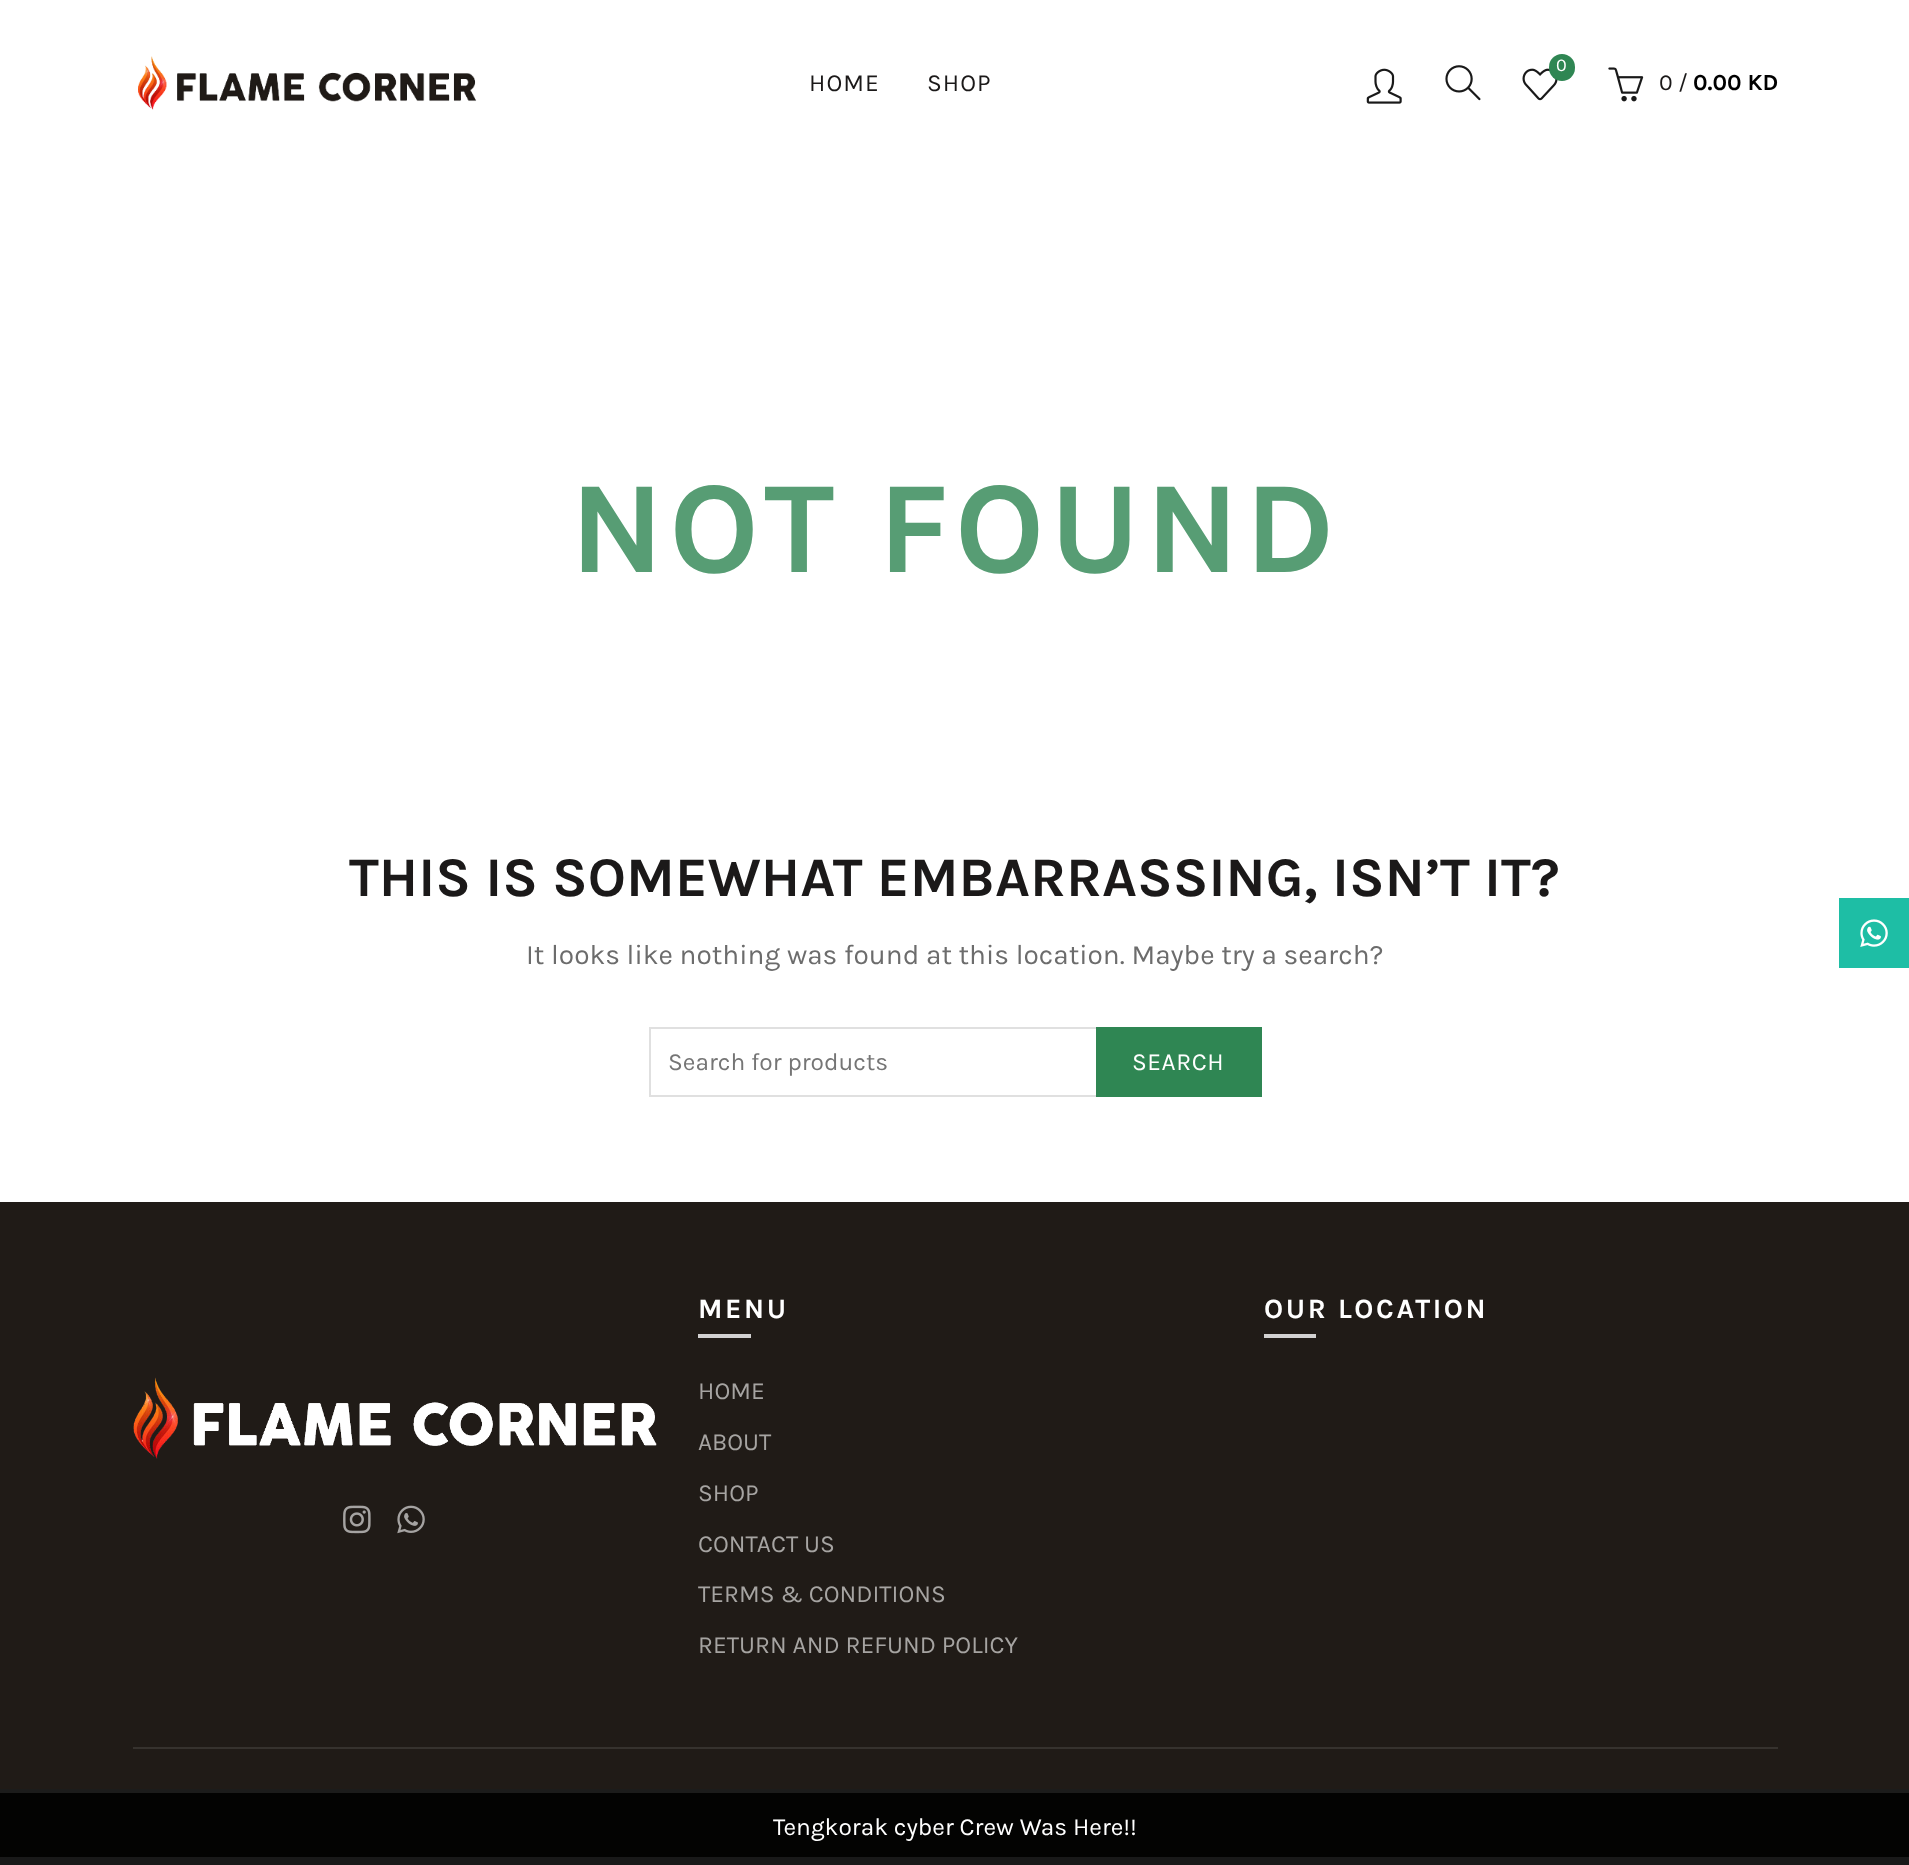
<svg xmlns="http://www.w3.org/2000/svg" width="1909" height="1865" viewBox="0 0 1909 1865">
  <rect width="100%" height="100%" fill="#ffffff"/>
  <rect x="0" y="1857" width="1909" height="8" fill="#191919"/>
  <image x="138" y="56" width="339" height="54" href="img1.png"/>
  <text x="809" y="91" font-family="Karla" font-size="24.5" letter-spacing="1" fill="#1b1919">HOME</text>
  <text x="927" y="91" font-family="Karla" font-size="24.5" letter-spacing="1" fill="#1b1919">SHOP</text>
  <image x="1366" y="68" width="36" height="36" href="img2.png"/>
  <image x="1445" y="65" width="36" height="36" href="img3.png"/>
  <image x="1522" y="68" width="36" height="33" href="img4.png"/>
  <rect x="1549" y="54" width="26" height="27" rx="13" fill="#2f8653"/>
  <text x="1556" y="71" font-family="Karla" font-size="18" fill="#ffffff">0</text>
  <image x="1608" y="67" width="36" height="35" href="img5.png"/>
  <text x="1659" y="90" font-family="Karla" font-size="23" fill="#1b1919">0 /</text>
  <text x="1693" y="90" font-family="Karla" font-size="23" font-weight="bold" fill="#000000">0.00 KD</text>
  <text x="570" y="572" font-family="Karla" font-size="131.25" font-weight="bold" letter-spacing="5.25" fill="#579d74">NOT FOUND</text>
  <text x="349" y="896" font-family="Karla" font-size="56" font-weight="bold" fill="#1b1919">THIS IS SOMEWHAT EMBARRASSING, ISN’T IT?</text>
  <text x="526" y="964" font-family="Karla" font-size="28" fill="#6c6c6c">It looks like nothing was found at this location. Maybe try a search?</text>
  <rect x="650" y="1028" width="611" height="68" fill="none" stroke="#e0e0e0" stroke-width="2"/>
  <text x="668" y="1070" font-family="Karla" font-size="24.5" fill="#757575">Search for products</text>
  <rect x="1096" y="1027" width="166" height="70" fill="#2f8653"/>
  <text x="1132" y="1070" font-family="Karla" font-size="24.5" letter-spacing="0.5" fill="#ffffff">SEARCH</text>
  <rect x="0" y="1202" width="1909" height="587" fill="#201b17"/>
  <rect x="0" y="1789" width="1909" height="68" fill="#030302"/>
  <text x="698" y="1318" font-family="Karla" font-size="28" font-weight="bold" letter-spacing="2.6" fill="#ffffff">MENU</text>
  <rect x="698" y="1334" width="53" height="4" fill="#d2d1d1"/>
  <text x="698" y="1399" font-family="Karla" font-size="24.5" fill="#a6a4a2">HOME</text>
  <text x="698" y="1450" font-family="Karla" font-size="24.5" fill="#a6a4a2">ABOUT</text>
  <text x="698" y="1501" font-family="Karla" font-size="24.5" fill="#a6a4a2">SHOP</text>
  <text x="698" y="1552" font-family="Karla" font-size="24.5" fill="#a6a4a2">CONTACT US</text>
  <text x="698" y="1602" font-family="Karla" font-size="24.5" fill="#a6a4a2">TERMS &amp; CONDITIONS</text>
  <text x="698" y="1653" font-family="Karla" font-size="24.5" fill="#a6a4a2">RETURN AND REFUND POLICY</text>
  <text x="1264" y="1318" font-family="Karla" font-size="28" font-weight="bold" letter-spacing="2.6" fill="#ffffff">OUR LOCATION</text>
  <rect x="1264" y="1334" width="52" height="4" fill="#d2d1d1"/>
  <image x="133" y="1377" width="524" height="82" href="img6.png"/>
  <image x="343" y="1505" width="28" height="29" href="img7.png"/>
  <image x="397" y="1505" width="28" height="29" href="img8.png"/>
  <rect x="133" y="1747" width="1645" height="2" fill="#36322e"/>
  <rect x="1839" y="898" width="70" height="70" fill="#1ebea5"/>
  <image x="1860" y="919" width="28" height="28" href="img9.png"/>
  <rect x="0" y="1789" width="1909" height="4" fill="#ffffff" fill-opacity="0.1"/>
  <text x="773" y="1835" font-family="Karla" font-size="24.5" fill="#ffffff">Tengkorak cyber Crew Was Here!!</text>
</svg>
